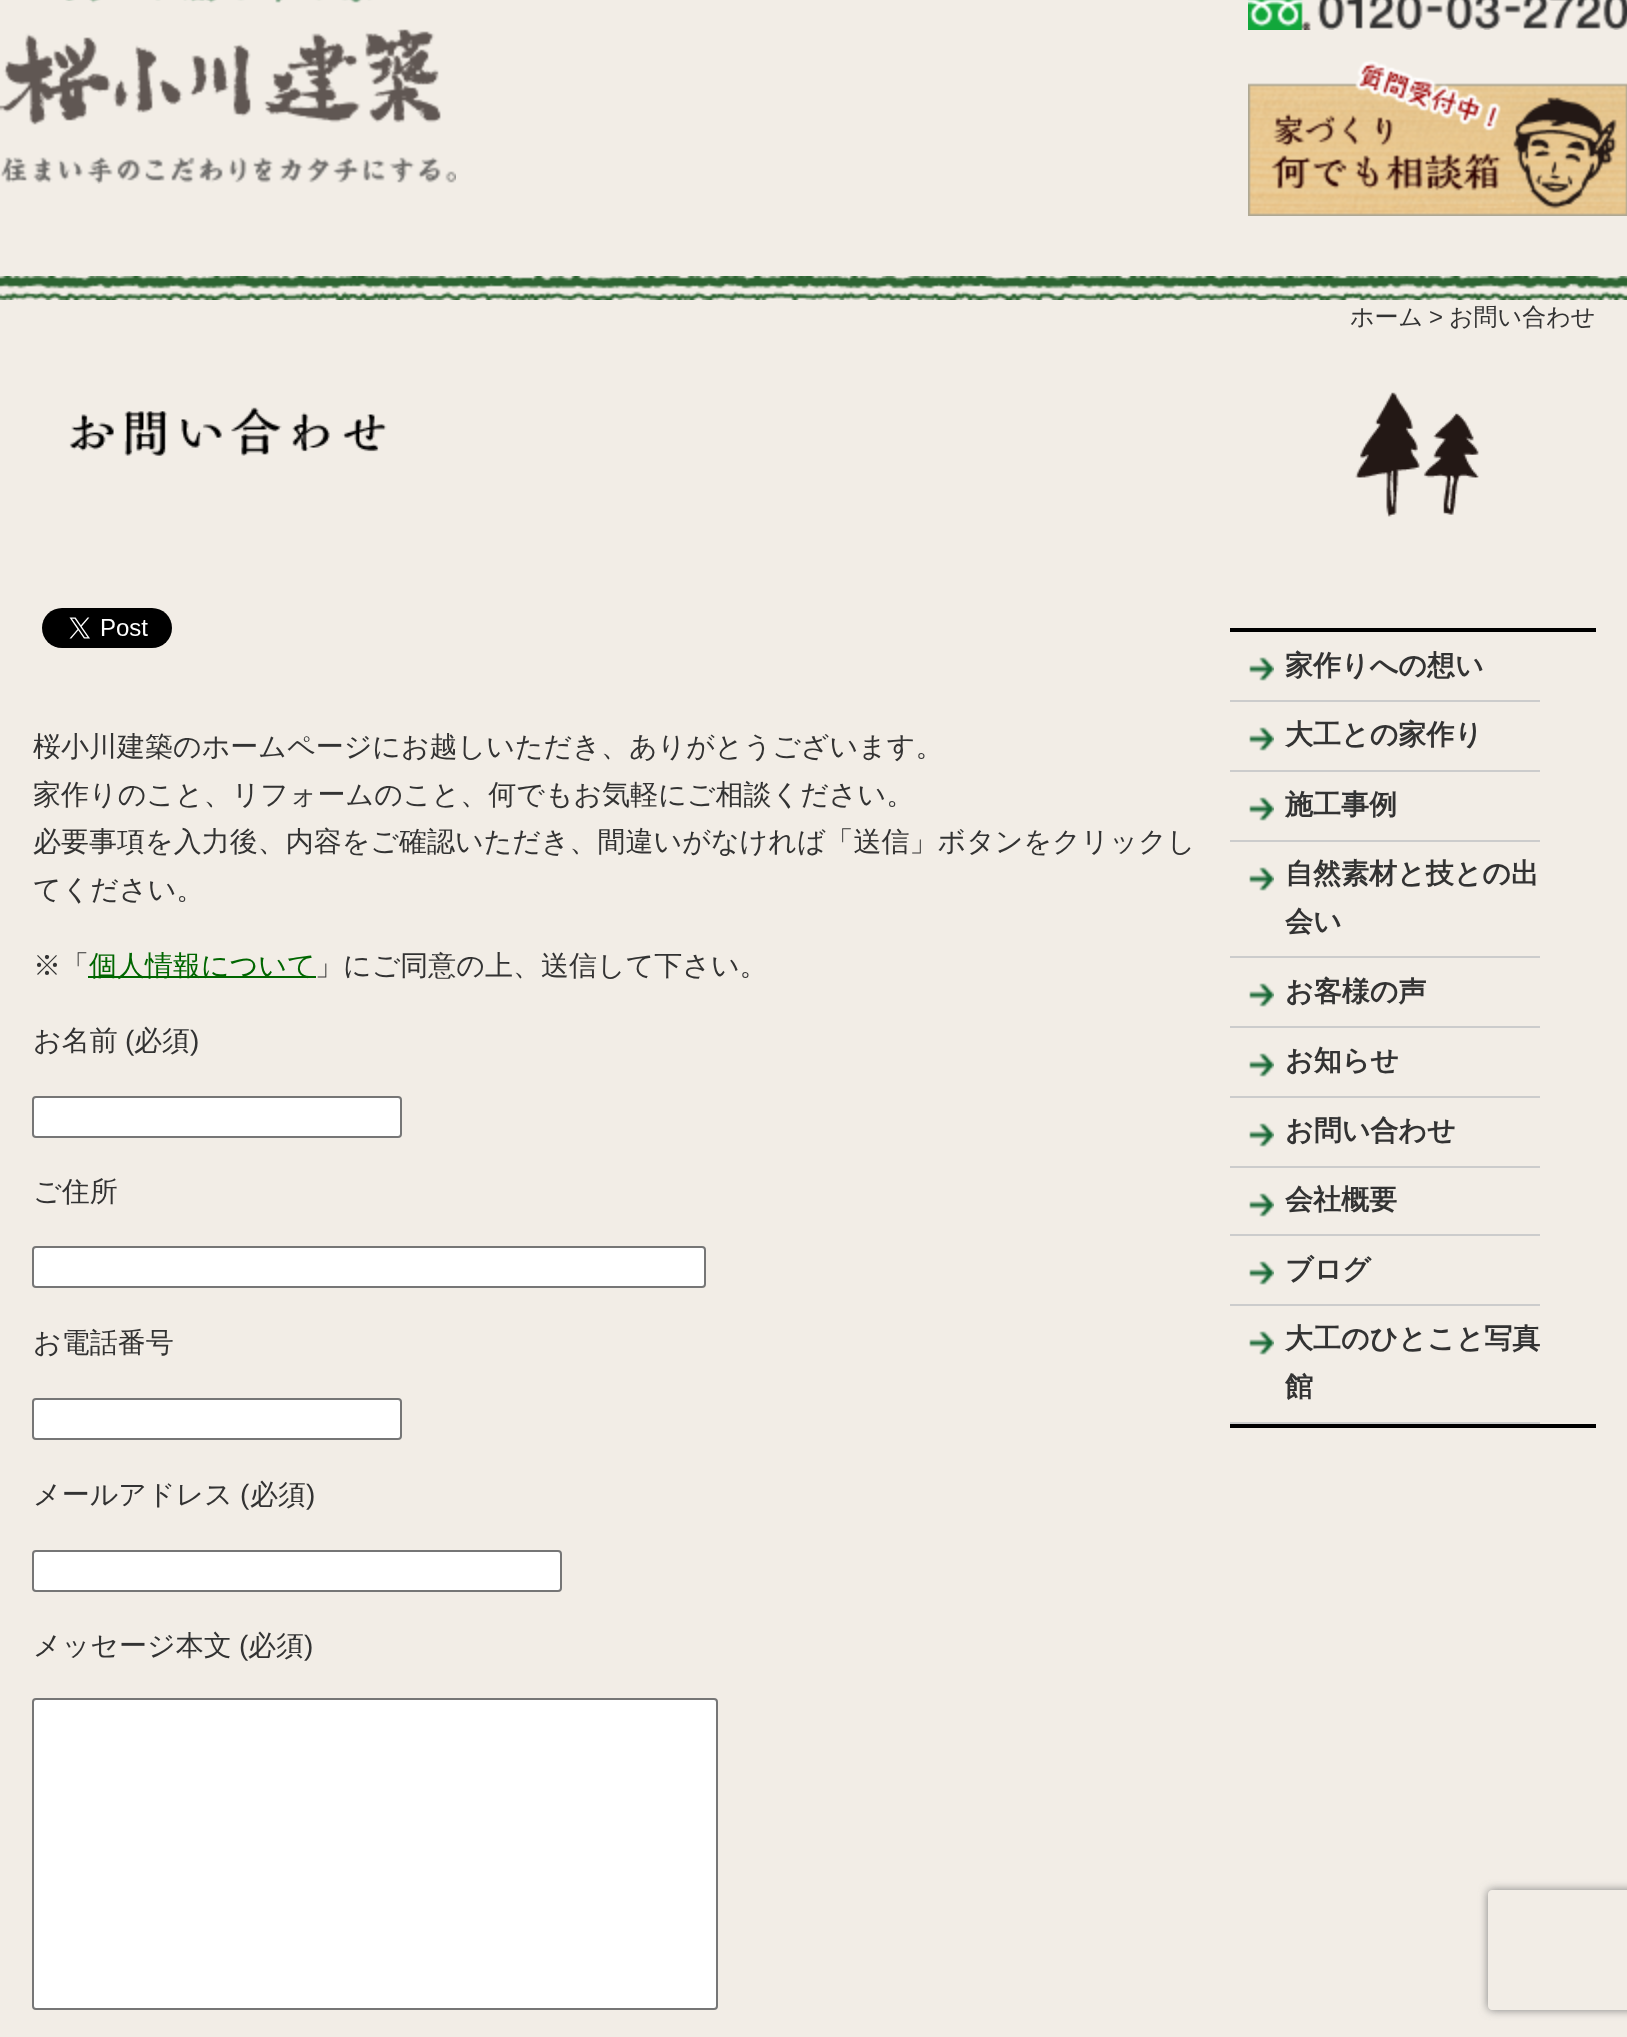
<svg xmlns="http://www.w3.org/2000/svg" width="1627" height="2037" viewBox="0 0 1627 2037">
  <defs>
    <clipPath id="clip1"><path d="M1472 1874H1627V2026H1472ZM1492 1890H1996C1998 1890 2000 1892 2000 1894V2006C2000 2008 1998 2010 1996 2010H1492C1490 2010 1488 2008 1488 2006V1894C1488 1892 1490 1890 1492 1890Z" clip-rule="evenodd"/></clipPath>
    <filter id="blur1" x="-50%" y="-200%" width="200%" height="500%"><feGaussianBlur stdDeviation="5"/></filter>
  </defs>
  <rect width="100%" height="100%" fill="#f2ede6"/>
  <image x="0" y="0" width="456" height="184" href="img1.png"/>
  <image x="1248" y="0" width="379" height="30" href="img2.png"/>
  <image x="1248" y="60" width="379" height="156" href="img3.png"/>
  <image x="0" y="276" width="1627" height="24" href="img4.png"/>
  <text x="1350" y="325" font-family="WenQuanYi Zen Hei" font-size="24" font-weight="500" fill="#333333">ホーム</text>
  <text x="1429" y="325" font-family="Liberation Sans" font-size="24" fill="#333333">&gt;</text>
  <text x="1449" y="325" font-family="WenQuanYi Zen Hei" font-size="24" font-weight="500" fill="#333333">お問い合わせ</text>
  <image x="69" y="407" width="318" height="49" href="img5.png"/>
  <image x="1355" y="392" width="124" height="125" href="img6.png"/>
  <image x="42" y="608" width="130" height="40" href="img7.png"/>
  <text x="33" y="756" font-family="WenQuanYi Zen Hei" font-size="28" font-weight="500" fill="#333333">桜小川建築のホームページにお越しいただき、ありがとうございます。</text>
  <text x="33" y="804" font-family="WenQuanYi Zen Hei" font-size="28" font-weight="500" fill="#333333">家作りのこと、リフォームのこと、何でもお気軽にご相談ください。</text>
  <text x="33" y="851" font-family="WenQuanYi Zen Hei" font-size="28" font-weight="500" fill="#333333">必要事項を入力後、内容をご確認いただき、間違いがなければ「送信」ボタンをクリックし</text>
  <text x="33" y="899" font-family="WenQuanYi Zen Hei" font-size="28" font-weight="500" fill="#333333">てください。</text>
  <text x="33" y="975" font-family="WenQuanYi Zen Hei" font-size="28" font-weight="500" fill="#333333">※「</text>
  <rect x="88" y="976" width="228" height="2" fill="#006600"/>
  <text x="89" y="975" font-family="WenQuanYi Zen Hei" font-size="28" font-weight="500" fill="#006600">個人情報について</text>
  <text x="315" y="975" font-family="WenQuanYi Zen Hei" font-size="28" font-weight="500" fill="#333333">」にご同意の上、送信して下さい。</text>
  <text x="33" y="1050" font-family="WenQuanYi Zen Hei" font-size="28" font-weight="500" fill="#333333">お名前</text>
  <text x="125" y="1050" font-family="Liberation Sans" font-size="28" fill="#333333">(</text>
  <text x="134" y="1050" font-family="WenQuanYi Zen Hei" font-size="28" font-weight="500" fill="#333333">必須</text>
  <text x="190" y="1050" font-family="Liberation Sans" font-size="28" fill="#333333">)</text>
  <rect x="33" y="1097" width="368" height="40" rx="3" fill="#ffffff" stroke="#767676" stroke-width="2"/>
  <text x="33" y="1201" font-family="WenQuanYi Zen Hei" font-size="28" font-weight="500" fill="#333333">ご住所</text>
  <rect x="33" y="1247" width="672" height="40" rx="3" fill="#ffffff" stroke="#767676" stroke-width="2"/>
  <text x="33" y="1352" font-family="WenQuanYi Zen Hei" font-size="28" font-weight="500" fill="#333333">お電話番号</text>
  <rect x="33" y="1399" width="368" height="40" rx="3" fill="#ffffff" stroke="#767676" stroke-width="2"/>
  <text x="33" y="1504" font-family="WenQuanYi Zen Hei" font-size="28" font-weight="500" fill="#333333">メールアドレス</text>
  <text x="240" y="1504" font-family="Liberation Sans" font-size="28" fill="#333333">(</text>
  <text x="250" y="1504" font-family="WenQuanYi Zen Hei" font-size="28" font-weight="500" fill="#333333">必須</text>
  <text x="306" y="1504" font-family="Liberation Sans" font-size="28" fill="#333333">)</text>
  <rect x="33" y="1551" width="528" height="40" rx="3" fill="#ffffff" stroke="#767676" stroke-width="2"/>
  <text x="33" y="1655" font-family="WenQuanYi Zen Hei" font-size="28" font-weight="500" fill="#333333">メッセージ本文</text>
  <text x="239" y="1655" font-family="Liberation Sans" font-size="28" fill="#333333">(</text>
  <text x="248" y="1655" font-family="WenQuanYi Zen Hei" font-size="28" font-weight="500" fill="#333333">必須</text>
  <text x="304" y="1655" font-family="Liberation Sans" font-size="28" fill="#333333">)</text>
  <rect x="33" y="1699" width="684" height="310" rx="3" fill="#ffffff" stroke="#767676" stroke-width="2"/>
  <rect x="1230" y="628" width="366" height="4" fill="#000000"/>
  <rect x="1230" y="1424" width="366" height="4" fill="#000000"/>
  <image x="1249" y="657" width="25" height="24" href="img8.png"/>
  <rect x="1230" y="700" width="310" height="2" fill="#cccccc"/>
  <text x="1285" y="675" font-family="WenQuanYi Zen Hei" font-size="28" font-weight="bold" fill="#333333">家作りへの想い</text>
  <image x="1249" y="727" width="25" height="24" href="img8.png"/>
  <rect x="1230" y="770" width="310" height="2" fill="#cccccc"/>
  <text x="1285" y="744" font-family="WenQuanYi Zen Hei" font-size="28" font-weight="bold" fill="#333333">大工との家作り</text>
  <image x="1249" y="797" width="25" height="24" href="img8.png"/>
  <rect x="1230" y="840" width="310" height="2" fill="#cccccc"/>
  <text x="1285" y="814" font-family="WenQuanYi Zen Hei" font-size="28" font-weight="bold" fill="#333333">施工事例</text>
  <image x="1249" y="867" width="25" height="24" href="img8.png"/>
  <rect x="1230" y="956" width="310" height="2" fill="#cccccc"/>
  <text x="1285" y="883" font-family="WenQuanYi Zen Hei" font-size="28" font-weight="bold" fill="#333333">自然素材と技との出</text>
  <text x="1285" y="931" font-family="WenQuanYi Zen Hei" font-size="28" font-weight="bold" fill="#333333">会い</text>
  <image x="1249" y="983" width="25" height="24" href="img8.png"/>
  <rect x="1230" y="1026" width="310" height="2" fill="#cccccc"/>
  <text x="1285" y="1001" font-family="WenQuanYi Zen Hei" font-size="28" font-weight="bold" fill="#333333">お客様の声</text>
  <image x="1249" y="1053" width="25" height="24" href="img8.png"/>
  <rect x="1230" y="1096" width="310" height="2" fill="#cccccc"/>
  <text x="1285" y="1070" font-family="WenQuanYi Zen Hei" font-size="28" font-weight="bold" fill="#333333">お知らせ</text>
  <image x="1249" y="1123" width="25" height="24" href="img8.png"/>
  <rect x="1230" y="1166" width="310" height="2" fill="#cccccc"/>
  <text x="1285" y="1140" font-family="WenQuanYi Zen Hei" font-size="28" font-weight="bold" fill="#333333">お問い合わせ</text>
  <image x="1249" y="1193" width="25" height="24" href="img8.png"/>
  <rect x="1230" y="1234" width="310" height="2" fill="#cccccc"/>
  <text x="1285" y="1209" font-family="WenQuanYi Zen Hei" font-size="28" font-weight="bold" fill="#333333">会社概要</text>
  <image x="1249" y="1261" width="25" height="24" href="img8.png"/>
  <rect x="1230" y="1304" width="310" height="2" fill="#cccccc"/>
  <text x="1285" y="1279" font-family="WenQuanYi Zen Hei" font-size="28" font-weight="bold" fill="#333333">ブログ</text>
  <image x="1249" y="1331" width="25" height="24" href="img8.png"/>
  <rect x="1230" y="1422" width="310" height="2" fill="#cccccc"/>
  <text x="1285" y="1348" font-family="WenQuanYi Zen Hei" font-size="28" font-weight="bold" fill="#333333">大工のひとこと写真</text>
  <text x="1285" y="1396" font-family="WenQuanYi Zen Hei" font-size="28" font-weight="bold" fill="#333333">館</text>
  <g clip-path="url(#clip1)">
    <rect x="1488" y="1890" width="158" height="120" rx="4" fill="#808080" filter="url(#blur1)"/>
  </g>
</svg>
